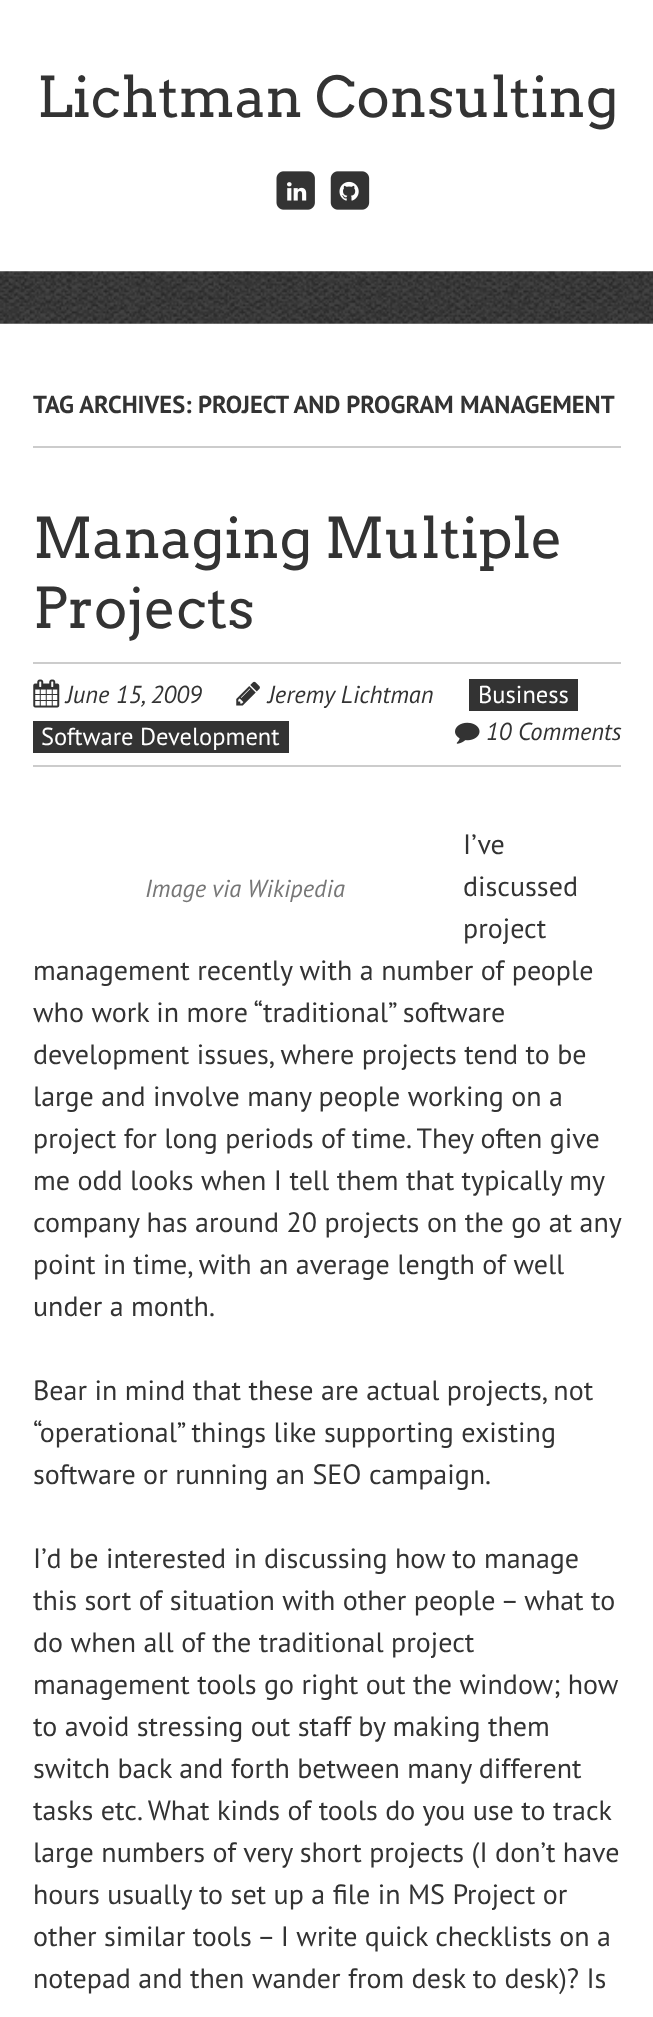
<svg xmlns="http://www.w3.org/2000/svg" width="653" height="2017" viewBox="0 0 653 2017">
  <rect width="100%" height="100%" fill="#ffffff"/>
  <text x="37" y="117" font-family="Arvo" font-size="56" fill="#333333">Lichtman Consulting</text>
  <image x="276" y="171" width="39" height="39" href="img1.png"/>
  <image x="287" y="182" width="20" height="19" href="img2.png"/>
  <image x="330" y="171" width="40" height="39" href="img3.png"/>
  <image x="339" y="181" width="20" height="20" href="img4.png"/>
  <image x="0" y="271" width="653" height="53" href="img5.png"/>
  <rect x="33" y="446" width="588" height="2" fill="#cccccc"/>
  <text x="33" y="413" font-family="PT Sans" font-size="24.5" font-weight="bold" fill="#333333">TAG ARCHIVES: PROJECT AND PROGRAM MANAGEMENT</text>
  <text x="33" y="558" font-family="Arvo" font-size="56" fill="#333333">Managing Multiple</text>
  <text x="33" y="628" font-family="Arvo" font-size="56" fill="#333333">Projects</text>
  <rect x="33" y="662" width="588" height="2" fill="#cccccc"/>
  <rect x="33" y="765" width="588" height="2" fill="#cccccc"/>
  <image x="33" y="679" width="27" height="29" href="img6.png"/>
  <text x="66" y="703" font-family="PT Sans" font-size="24.5" font-style="italic" fill="#333333">June 15, 2009</text>
  <image x="236" y="681" width="24" height="25" href="img7.png"/>
  <text x="268" y="703" font-family="PT Sans" font-size="24.5" font-style="italic" fill="#333333">Jeremy Lichtman</text>
  <rect x="469" y="679" width="109" height="32" fill="#333333"/>
  <text x="478" y="703" font-family="PT Sans" font-size="24.5" fill="#ffffff">Business</text>
  <rect x="33" y="721" width="256" height="32" fill="#333333"/>
  <text x="41" y="745" font-family="PT Sans" font-size="24.5" fill="#ffffff">Software Development</text>
  <image x="455" y="722" width="25" height="22" href="img8.png"/>
  <text x="486" y="740" font-family="PT Sans" font-size="24.5" font-style="italic" fill="#333333">10 Comments</text>
  <text x="463" y="854" font-family="PT Sans" font-size="28" fill="#333333">I’ve</text>
  <text x="463" y="896" font-family="PT Sans" font-size="28" fill="#333333">discussed</text>
  <text x="463" y="938" font-family="PT Sans" font-size="28" fill="#333333">project</text>
  <text x="33" y="980" font-family="PT Sans" font-size="28" fill="#333333">management recently with a number of people</text>
  <text x="33" y="1022" font-family="PT Sans" font-size="28" fill="#333333">who work in more “traditional” software</text>
  <text x="33" y="1064" font-family="PT Sans" font-size="28" fill="#333333">development issues, where projects tend to be</text>
  <text x="33" y="1106" font-family="PT Sans" font-size="28" fill="#333333">large and involve many people working on a</text>
  <text x="33" y="1148" font-family="PT Sans" font-size="28" fill="#333333">project for long periods of time. They often give</text>
  <text x="33" y="1190" font-family="PT Sans" font-size="28" fill="#333333">me odd looks when I tell them that typically my</text>
  <text x="33" y="1232" font-family="PT Sans" font-size="28" fill="#333333">company has around 20 projects on the go at any</text>
  <text x="33" y="1274" font-family="PT Sans" font-size="28" fill="#333333">point in time, with an average length of well</text>
  <text x="33" y="1316" font-family="PT Sans" font-size="28" fill="#333333">under a month.</text>
  <text x="145" y="897" font-family="PT Sans" font-size="24.5" font-style="italic" fill="#777777">Image via Wikipedia</text>
  <text x="33" y="1400" font-family="PT Sans" font-size="28" fill="#333333">Bear in mind that these are actual projects, not</text>
  <text x="33" y="1442" font-family="PT Sans" font-size="28" fill="#333333">“operational” things like supporting existing</text>
  <text x="33" y="1484" font-family="PT Sans" font-size="28" fill="#333333">software or running an SEO campaign.</text>
  <text x="33" y="1568" font-family="PT Sans" font-size="28" fill="#333333">I’d be interested in discussing how to manage</text>
  <text x="33" y="1610" font-family="PT Sans" font-size="28" fill="#333333">this sort of situation with other people – what to</text>
  <text x="33" y="1652" font-family="PT Sans" font-size="28" fill="#333333">do when all of the traditional project</text>
  <text x="33" y="1694" font-family="PT Sans" font-size="28" fill="#333333">management tools go right out the window; how</text>
  <text x="33" y="1736" font-family="PT Sans" font-size="28" fill="#333333">to avoid stressing out staff by making them</text>
  <text x="33" y="1778" font-family="PT Sans" font-size="28" fill="#333333">switch back and forth between many different</text>
  <text x="33" y="1820" font-family="PT Sans" font-size="28" fill="#333333">tasks etc. What kinds of tools do you use to track</text>
  <text x="33" y="1862" font-family="PT Sans" font-size="28" fill="#333333">large numbers of very short projects (I don’t have</text>
  <text x="33" y="1904" font-family="PT Sans" font-size="28" fill="#333333">hours usually to set up a file in MS Project or</text>
  <text x="33" y="1946" font-family="PT Sans" font-size="28" fill="#333333">other similar tools – I write quick checklists on a</text>
  <text x="33" y="1988" font-family="PT Sans" font-size="28" fill="#333333">notepad and then wander from desk to desk)? Is</text>
</svg>
